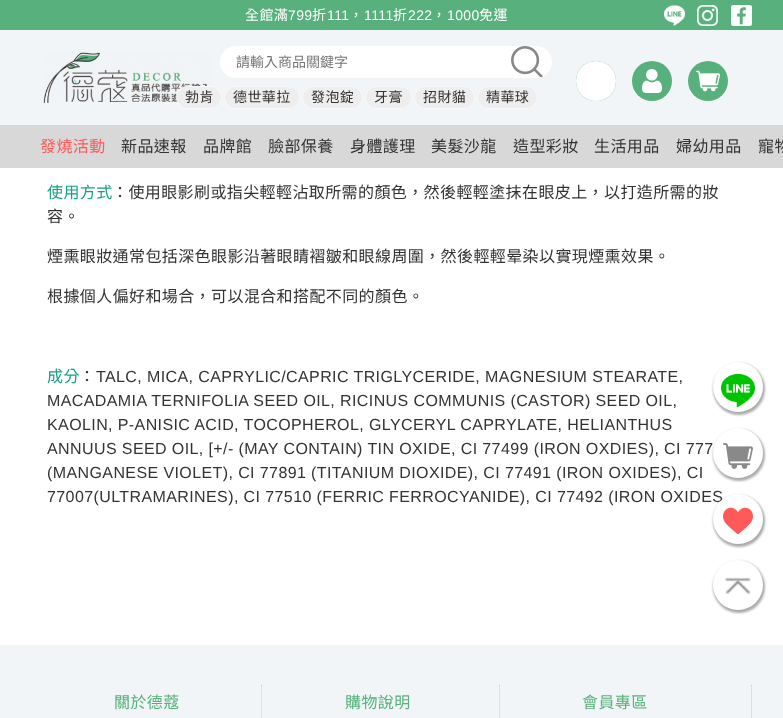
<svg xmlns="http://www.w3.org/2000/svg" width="783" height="718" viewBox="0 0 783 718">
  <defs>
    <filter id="blur1" x="-50%" y="-200%" width="200%" height="500%"><feGaussianBlur stdDeviation="1"/></filter>
  </defs>
  <rect width="100%" height="100%" fill="#ffffff"/>
  <rect x="0" y="0" width="783" height="30" fill="#58b07c"/>
  <text x="245" y="20" font-family="Noto Sans CJK TC" font-size="14" letter-spacing="0.4" fill="#ffffff">全館滿</text>
  <text x="288" y="20" font-family="Liberation Sans" font-size="14" letter-spacing="0.4" fill="#ffffff">799</text>
  <text x="312" y="20" font-family="Noto Sans CJK TC" font-size="14" letter-spacing="0.4" fill="#ffffff">折</text>
  <text x="327" y="20" font-family="Liberation Sans" font-size="14" letter-spacing="0.4" fill="#ffffff">111</text>
  <text x="349" y="20" font-family="Noto Sans CJK TC" font-size="14" letter-spacing="0.4" fill="#ffffff">，</text>
  <text x="364" y="20" font-family="Liberation Sans" font-size="14" letter-spacing="0.4" fill="#ffffff">1111</text>
  <text x="393" y="20" font-family="Noto Sans CJK TC" font-size="14" letter-spacing="0.4" fill="#ffffff">折</text>
  <text x="408" y="20" font-family="Liberation Sans" font-size="14" letter-spacing="0.4" fill="#ffffff">222</text>
  <text x="432" y="20" font-family="Noto Sans CJK TC" font-size="14" letter-spacing="0.4" fill="#ffffff">，</text>
  <text x="447" y="20" font-family="Liberation Sans" font-size="14" letter-spacing="0.4" fill="#ffffff">1000</text>
  <text x="479" y="20" font-family="Noto Sans CJK TC" font-size="14" letter-spacing="0.4" fill="#ffffff">免運</text>
  <image x="664" y="5" width="21" height="21" href="img1.png"/>
  <image x="697" y="5" width="21" height="21" href="img2.png"/>
  <image x="731" y="5" width="21" height="21" href="img3.png"/>
  <rect x="0" y="30" width="783" height="95" fill="#f1f5f7"/>
  <image x="43" y="52" width="168" height="51" href="img4.png"/>
  <rect x="220" y="46" width="332" height="32" rx="16" fill="#ffffff"/>
  <text x="236" y="67" font-family="Noto Sans CJK TC" font-size="14" fill="#757575">請輸入商品關鍵字</text>
  <image x="511" y="46" width="32" height="32" href="img5.png"/>
  <rect x="176.5" y="86.5" width="45" height="22" rx="11" fill="#eeeeee" stroke="#f8f9fa"/>
  <text x="185" y="102" font-family="Noto Sans CJK TC" font-size="14" letter-spacing="0.4" fill="#333333">勃肯</text>
  <rect x="224.5" y="86.5" width="75" height="22" rx="11" fill="#eeeeee" stroke="#f8f9fa"/>
  <text x="233" y="102" font-family="Noto Sans CJK TC" font-size="14" letter-spacing="0.4" fill="#333333">德世華拉</text>
  <rect x="302.5" y="86.5" width="60" height="22" rx="11" fill="#eeeeee" stroke="#f8f9fa"/>
  <text x="311" y="102" font-family="Noto Sans CJK TC" font-size="14" letter-spacing="0.4" fill="#333333">發泡錠</text>
  <rect x="365.5" y="86.5" width="46" height="22" rx="11" fill="#eeeeee" stroke="#f8f9fa"/>
  <text x="374" y="102" font-family="Noto Sans CJK TC" font-size="14" letter-spacing="0.4" fill="#333333">牙膏</text>
  <rect x="414.5" y="86.5" width="60" height="22" rx="11" fill="#eeeeee" stroke="#f8f9fa"/>
  <text x="423" y="102" font-family="Noto Sans CJK TC" font-size="14" letter-spacing="0.4" fill="#333333">招財貓</text>
  <rect x="477.5" y="86.5" width="60" height="22" rx="11" fill="#eeeeee" stroke="#f8f9fa"/>
  <text x="486" y="102" font-family="Noto Sans CJK TC" font-size="14" letter-spacing="0.4" fill="#333333">精華球</text>
  <circle cx="596" cy="81" r="20" fill="#58b07c"/>
  <image x="576" y="61" width="40" height="40" href="img6.png"/>
  <circle cx="652" cy="81" r="20" fill="#58b07c"/>
  <image x="642" y="69" width="20" height="24" href="img7.png"/>
  <circle cx="708" cy="81" r="20" fill="#58b07c"/>
  <image x="696" y="70" width="24" height="22" href="img8.png"/>
  <rect x="0" y="125" width="783" height="43" fill="#d8d8d8"/>
  <text x="40" y="152" font-family="Noto Sans CJK TC" font-size="16" letter-spacing="0.4" fill="#ff5959">發燒活動</text>
  <text x="121" y="152" font-family="Noto Sans CJK TC" font-size="16" letter-spacing="0.4" fill="#333333">新品速報</text>
  <text x="203" y="152" font-family="Noto Sans CJK TC" font-size="16" letter-spacing="0.4" fill="#333333">品牌館</text>
  <text x="268" y="152" font-family="Noto Sans CJK TC" font-size="16" letter-spacing="0.4" fill="#333333">臉部保養</text>
  <text x="350" y="152" font-family="Noto Sans CJK TC" font-size="16" letter-spacing="0.4" fill="#333333">身體護理</text>
  <text x="431" y="152" font-family="Noto Sans CJK TC" font-size="16" letter-spacing="0.4" fill="#333333">美髮沙龍</text>
  <text x="513" y="152" font-family="Noto Sans CJK TC" font-size="16" letter-spacing="0.4" fill="#333333">造型彩妝</text>
  <text x="594" y="152" font-family="Noto Sans CJK TC" font-size="16" letter-spacing="0.4" fill="#333333">生活用品</text>
  <text x="676" y="152" font-family="Noto Sans CJK TC" font-size="16" letter-spacing="0.4" fill="#333333">婦幼用品</text>
  <text x="758" y="152" font-family="Noto Sans CJK TC" font-size="16" letter-spacing="0.4" fill="#333333">寵物</text>
  <text x="47" y="198" font-family="Noto Sans CJK TC" font-size="16" letter-spacing="0.4" fill="#16a085">使用方式</text>
  <text x="112" y="198" font-family="Noto Sans CJK TC" font-size="16" letter-spacing="0.4" fill="#333333">：使用眼影刷或指尖輕輕沾取所需的顏色，然後輕輕塗抹在眼皮上，以打造所需的妝</text>
  <text x="47" y="222" font-family="Noto Sans CJK TC" font-size="16" letter-spacing="0.4" fill="#333333">容。</text>
  <text x="47" y="262" font-family="Noto Sans CJK TC" font-size="16" letter-spacing="0.4" fill="#333333">煙熏眼妝通常包括深色眼影沿著眼睛褶皺和眼線周圍，然後輕輕晕染以實現煙熏效果。</text>
  <text x="47" y="302" font-family="Noto Sans CJK TC" font-size="16" letter-spacing="0.4" fill="#333333">根據個人偏好和場合，可以混合和搭配不同的顏色。</text>
  <text x="47" y="382" font-family="Noto Sans CJK TC" font-size="16" letter-spacing="0.4" fill="#16a085">成分</text>
  <text x="79" y="382" font-family="Noto Sans CJK TC" font-size="16" letter-spacing="0.4" fill="#333333">：</text>
  <text x="96" y="382" font-family="Liberation Sans" font-size="16" letter-spacing="0.4" fill="#333333">TALC, MICA, CAPRYLIC/CAPRIC TRIGLYCERIDE, MAGNESIUM STEARATE,</text>
  <text x="47" y="406" font-family="Liberation Sans" font-size="16" letter-spacing="0.4" fill="#333333">MACADAMIA TERNIFOLIA SEED OIL, RICINUS COMMUNIS (CASTOR) SEED OIL,</text>
  <text x="47" y="430" font-family="Liberation Sans" font-size="16" letter-spacing="0.4" fill="#333333">KAOLIN, P-ANISIC ACID, TOCOPHEROL, GLYCERYL CAPRYLATE, HELIANTHUS</text>
  <text x="47" y="454" font-family="Liberation Sans" font-size="16" letter-spacing="0.4" fill="#333333">ANNUUS SEED OIL, [+/- (MAY CONTAIN) TIN OXIDE, CI 77499 (IRON OXDIES), CI 777</text>
  <text x="47" y="478" font-family="Liberation Sans" font-size="16" letter-spacing="0.4" fill="#333333">(MANGANESE VIOLET), CI 77891 (TITANIUM DIOXIDE), CI 77491 (IRON OXIDES), CI</text>
  <text x="47" y="502" font-family="Liberation Sans" font-size="16" letter-spacing="0.4" fill="#333333">77007(ULTRAMARINES), CI 77510 (FERRIC FERROCYANIDE), CI 77492 (IRON OXIDES</text>
  <rect x="713" y="363" width="52" height="52" rx="26" fill="#aaaaaa" filter="url(#blur1)"/>
  <circle cx="738" cy="387" r="25" fill="#ffffff"/>
  <image x="721" y="374" width="34" height="33" href="img9.png"/>
  <rect x="713" y="429" width="52" height="52" rx="26" fill="#aaaaaa" filter="url(#blur1)"/>
  <circle cx="738" cy="453" r="25" fill="#ffffff"/>
  <image x="723" y="443" width="30" height="26" href="img10.png"/>
  <rect x="713" y="495" width="52" height="52" rx="26" fill="#aaaaaa" filter="url(#blur1)"/>
  <circle cx="738" cy="519" r="25" fill="#ffffff"/>
  <image x="723" y="507" width="30" height="28" href="img11.png"/>
  <rect x="713" y="561" width="52" height="52" rx="26" fill="#aaaaaa" filter="url(#blur1)"/>
  <circle cx="738" cy="585" r="25" fill="#ffffff"/>
  <image x="725" y="577" width="26" height="18" href="img12.png"/>
  <rect x="0" y="645" width="783" height="73" fill="#f1f5f7"/>
  <text x="114" y="708" font-family="Noto Sans CJK TC" font-size="16" letter-spacing="0.4" fill="#58b07c">關於德蔻</text>
  <rect x="261" y="685" width="1" height="33" fill="#dfdfdf"/>
  <rect x="261" y="685" width="1" height="1" fill="#c9c9c9"/>
  <text x="345" y="708" font-family="Noto Sans CJK TC" font-size="16" letter-spacing="0.4" fill="#58b07c">購物說明</text>
  <rect x="499" y="685" width="1" height="33" fill="#dfdfdf"/>
  <rect x="499" y="685" width="1" height="1" fill="#c9c9c9"/>
  <text x="582" y="708" font-family="Noto Sans CJK TC" font-size="16" letter-spacing="0.4" fill="#58b07c">會員專區</text>
  <rect x="751" y="685" width="1" height="33" fill="#dfdfdf"/>
  <rect x="751" y="685" width="1" height="1" fill="#c9c9c9"/>
</svg>
